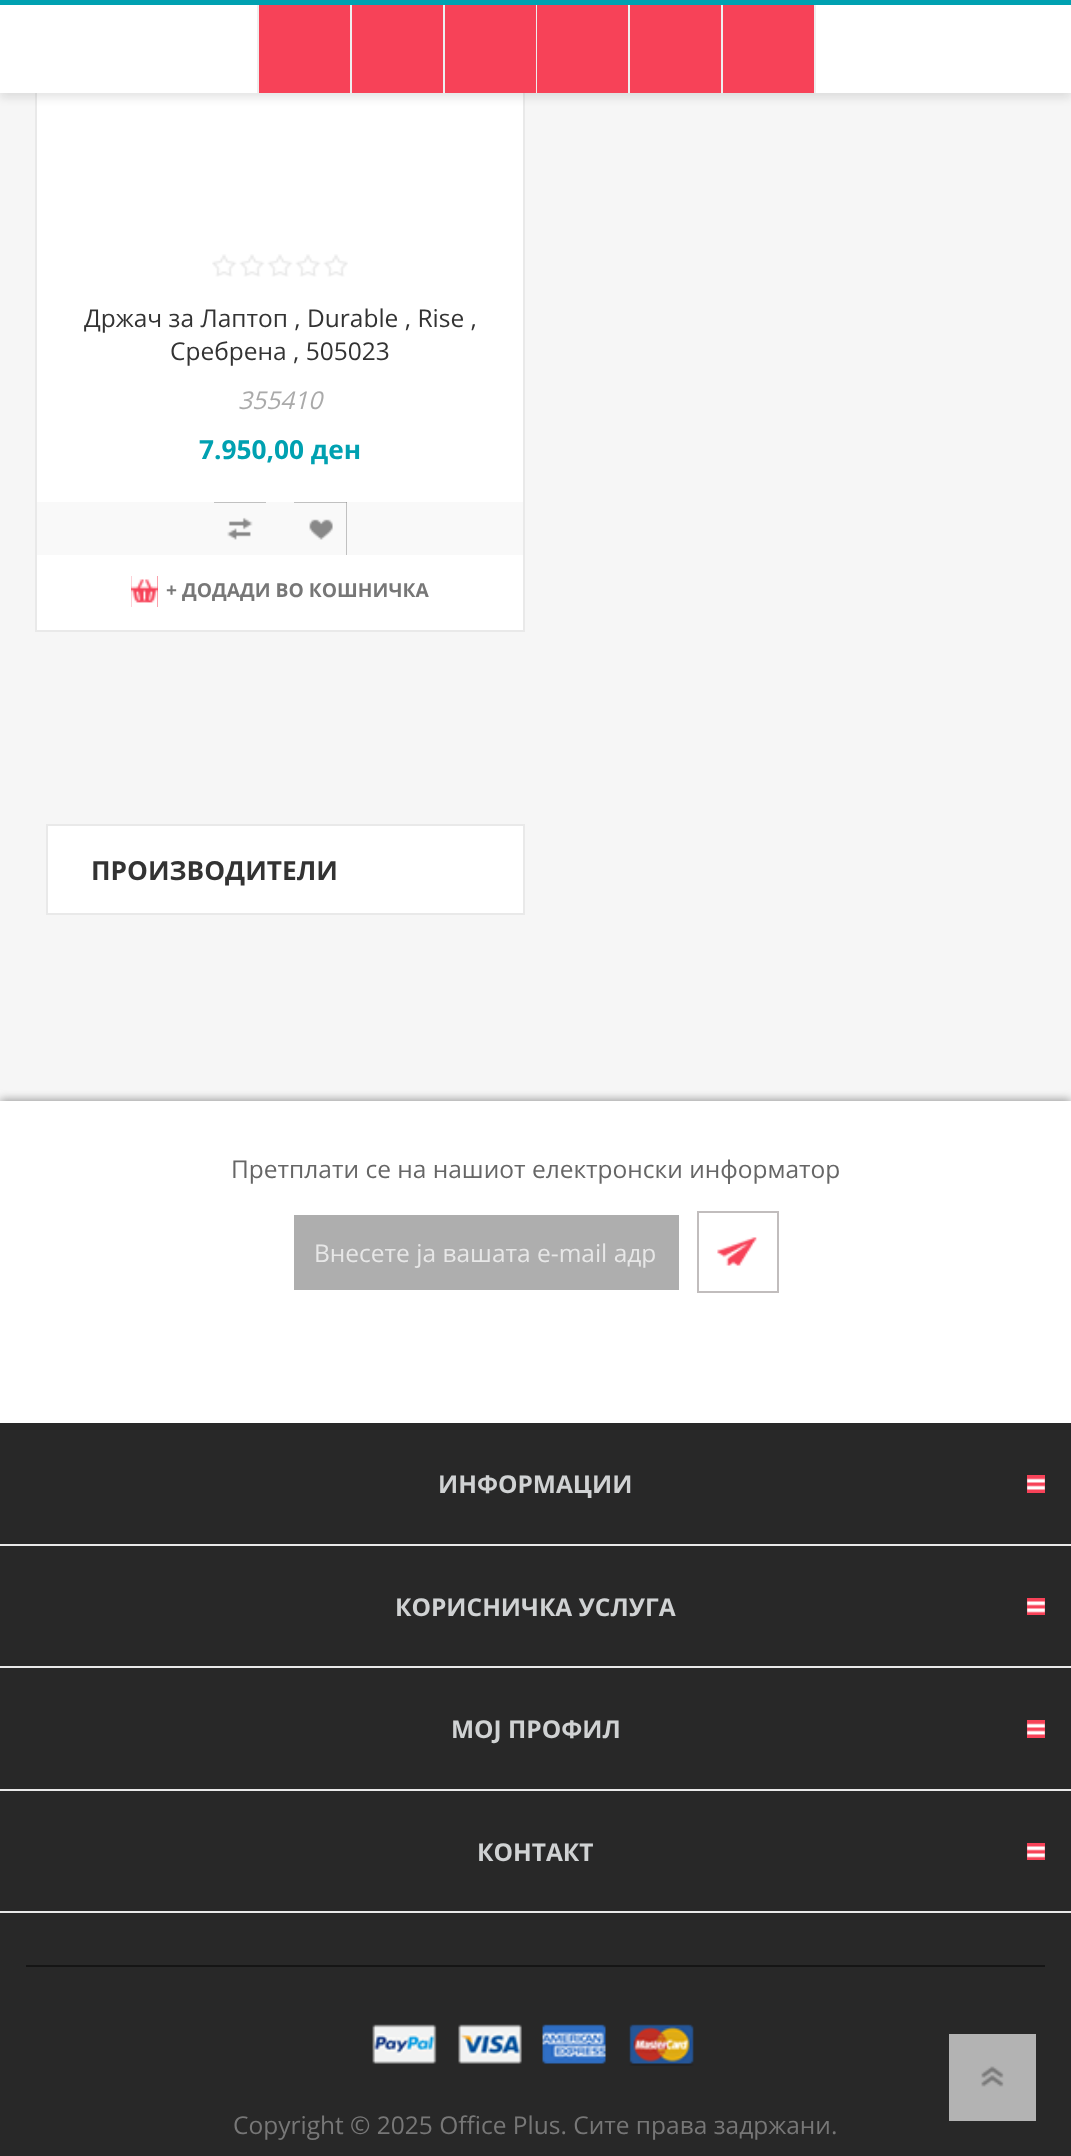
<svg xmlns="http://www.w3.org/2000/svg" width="1071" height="2156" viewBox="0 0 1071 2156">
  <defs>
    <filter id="blur1" x="-50%" y="-200%" width="200%" height="500%"><feGaussianBlur stdDeviation="4.5"/></filter>
  </defs>
  <rect width="100%" height="100%" fill="#f6f6f6"/>
  <rect x="37" y="93" width="486" height="537" fill="#ffffff"/>
  <rect x="36" y="-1" width="488" height="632" fill="none" stroke="#e9e9e9" stroke-width="2"/>
  <rect x="0" y="5" width="1071" height="93" fill="#000000" fill-opacity="0.1" filter="url(#blur1)"/>
  <rect x="0" y="5" width="1071" height="88" fill="#ffffff"/>
  <rect x="0" y="0" width="1071" height="5" fill="#00a1b1"/>
  <rect x="259" y="5" width="91" height="88" fill="#f74258"/>
  <rect x="350" y="5" width="2" height="88" fill="#eeeeee"/>
  <rect x="257" y="5" width="2" height="88" fill="#eeeeee"/>
  <rect x="352" y="5" width="91" height="88" fill="#f74258"/>
  <rect x="443" y="5" width="2" height="88" fill="#eeeeee"/>
  <rect x="445" y="5" width="91" height="88" fill="#f74258"/>
  <rect x="536" y="5" width="1" height="88" fill="#eeeeee"/>
  <rect x="537" y="5" width="91" height="88" fill="#f74258"/>
  <rect x="628" y="5" width="2" height="88" fill="#eeeeee"/>
  <rect x="630" y="5" width="91" height="88" fill="#f74258"/>
  <rect x="721" y="5" width="2" height="88" fill="#eeeeee"/>
  <rect x="723" y="5" width="91" height="88" fill="#f74258"/>
  <rect x="814" y="5" width="2" height="88" fill="#eeeeee"/>
  <image x="212" y="254" width="136" height="23" href="img1.png"/>
  <text x="84" y="327" font-family="Open Sans" font-size="24.5" fill="#333333">Држач за Лаптоп , Durable , Rise ,</text>
  <text x="170" y="360" font-family="Open Sans" font-size="24.5" fill="#333333">Сребрена , 505023</text>
  <text x="238" y="409" font-family="Open Sans" font-size="24.5" font-style="italic" fill="#aaaaaa">355410</text>
  <text x="199" y="459" font-family="Open Sans" font-size="26.25" font-weight="bold" fill="#00a1b1">7.950,00 ден</text>
  <rect x="37" y="502" width="486" height="53" fill="#f9f9f9"/>
  <rect x="214" y="502" width="52" height="38" fill="#888888"/>
  <image x="214" y="502" width="52" height="53" href="img2.png"/>
  <rect x="294" y="502" width="53" height="53" fill="#888888"/>
  <image x="294" y="502" width="53" height="53" href="img3.png"/>
  <rect x="131" y="576" width="27" height="31" fill="#f74258"/>
  <image x="131" y="576" width="27" height="31" href="img4.png"/>
  <text x="166" y="597" font-family="Open Sans" font-size="19.25" font-weight="bold" fill="#777777">+ ДОДАДИ ВО КОШНИЧКА</text>
  <rect x="47" y="825" width="477" height="89" fill="#ffffff" stroke="#e9e9e9" stroke-width="2"/>
  <text x="91" y="880" font-family="Open Sans" font-size="26.25" font-weight="bold" fill="#333333">ПРОИЗВОДИТЕЛИ</text>
  <rect x="0" y="1099" width="1071" height="322" fill="#a2a2a2" filter="url(#blur1)"/>
  <rect x="0" y="1101" width="1071" height="322" fill="#ffffff"/>
  <text x="231" y="1178" font-family="Open Sans" font-size="24.5" fill="#666666">Претплати се на нашиот електронски информатор</text>
  <rect x="294" y="1215" width="385" height="75" fill="#aeaeae"/>
  <text x="314" y="1262" font-family="Open Sans" font-size="24.5" fill="#e7e7e7">Внесете ја вашата e-mail адр</text>
  <rect x="717" y="1237" width="40" height="29" fill="#f74258"/>
  <image x="699" y="1213" width="78" height="78" href="img5.png"/>
  <rect x="698" y="1212" width="80" height="80" fill="none" stroke="#c1bdbd" stroke-width="2"/>
  <rect x="0" y="1423" width="1071" height="488" fill="#282828"/>
  <rect x="0" y="1544" width="1071" height="2" fill="#e9e9e9"/>
  <text x="438" y="1493" font-family="Open Sans" font-size="24.5" font-weight="bold" fill="#d0d2d3">ИНФОРМАЦИИ</text>
  <rect x="1027" y="1475" width="18" height="18" fill="#f74258"/>
  <image x="1027" y="1478" width="18" height="12" href="img6.png"/>
  <rect x="0" y="1666" width="1071" height="2" fill="#e9e9e9"/>
  <text x="395" y="1616" font-family="Open Sans" font-size="24.5" font-weight="bold" fill="#d0d2d3">КОРИСНИЧКА УСЛУГА</text>
  <rect x="1027" y="1598" width="18" height="17" fill="#f74258"/>
  <image x="1027" y="1601" width="18" height="12" href="img7.png"/>
  <rect x="0" y="1789" width="1071" height="2" fill="#e9e9e9"/>
  <text x="451" y="1738" font-family="Open Sans" font-size="24.5" font-weight="bold" fill="#d0d2d3">МОЈ ПРОФИЛ</text>
  <rect x="1027" y="1720" width="18" height="18" fill="#f74258"/>
  <image x="1027" y="1723" width="18" height="12" href="img6.png"/>
  <rect x="0" y="1911" width="1071" height="2" fill="#e9e9e9"/>
  <text x="477" y="1861" font-family="Open Sans" font-size="24.5" font-weight="bold" fill="#d0d2d3">КОНТАКТ</text>
  <rect x="1027" y="1843" width="18" height="17" fill="#f74258"/>
  <image x="1027" y="1846" width="18" height="12" href="img7.png"/>
  <rect x="0" y="1913" width="1071" height="243" fill="#282828"/>
  <rect x="26" y="1965" width="1019" height="2" fill="#151515"/>
  <image x="372" y="2024" width="65" height="40" href="img8.png"/>
  <image x="458" y="2024" width="64" height="40" href="img9.png"/>
  <image x="542" y="2024" width="64" height="40" href="img10.png"/>
  <image x="629" y="2024" width="65" height="42" href="img11.png"/>
  <text x="233" y="2134" font-family="Open Sans" font-size="24.5" fill="#777777">Copyright © 2025 Office Plus. Сите права задржани.</text>
  <rect x="949" y="2034" width="87" height="87" fill="#b3b3b3"/>
  <image x="981" y="2066" width="23" height="21" href="img12.png"/>
</svg>
